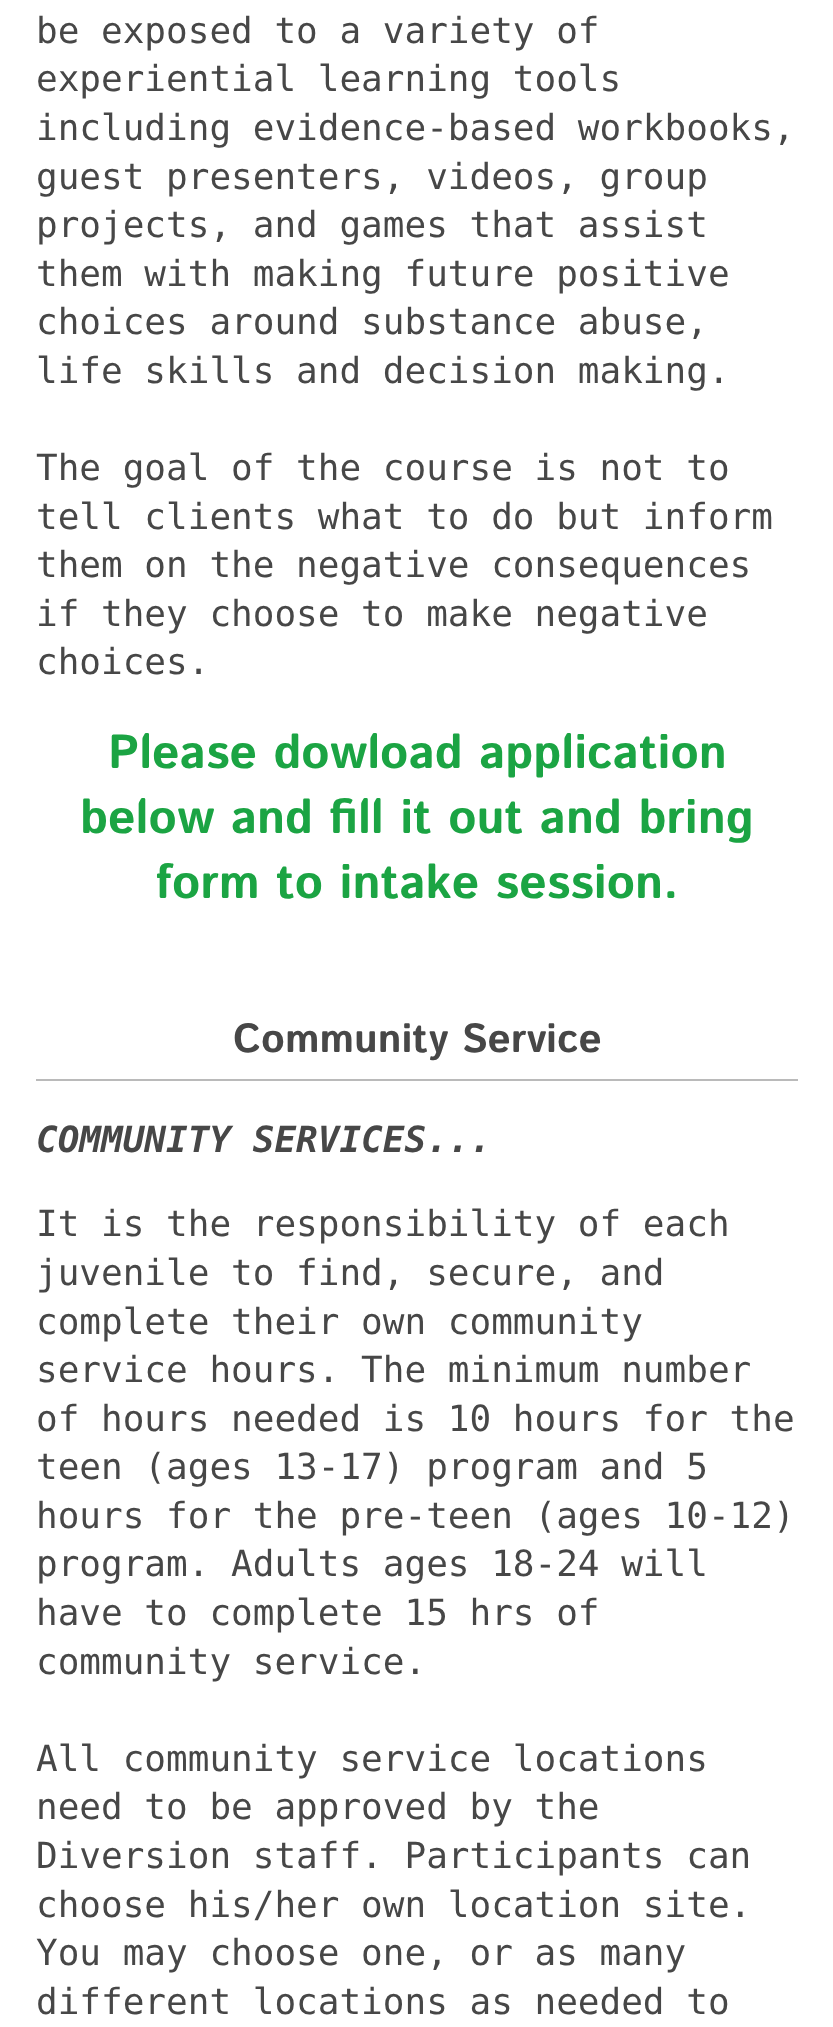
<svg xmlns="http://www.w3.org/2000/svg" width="833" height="2027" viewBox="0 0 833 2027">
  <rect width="100%" height="100%" fill="#ffffff"/>
  <text x="36" y="43" font-family="DejaVu Sans Mono" font-size="36" fill="#474747">be exposed to a variety of</text>
  <text x="36" y="91" font-family="DejaVu Sans Mono" font-size="36" fill="#474747">experiential learning tools</text>
  <text x="36" y="140" font-family="DejaVu Sans Mono" font-size="36" fill="#474747">including evidence-based workbooks,</text>
  <text x="36" y="189" font-family="DejaVu Sans Mono" font-size="36" fill="#474747">guest presenters, videos, group</text>
  <text x="36" y="237" font-family="DejaVu Sans Mono" font-size="36" fill="#474747">projects, and games that assist</text>
  <text x="36" y="286" font-family="DejaVu Sans Mono" font-size="36" fill="#474747">them with making future positive</text>
  <text x="36" y="334" font-family="DejaVu Sans Mono" font-size="36" fill="#474747">choices around substance abuse,</text>
  <text x="36" y="383" font-family="DejaVu Sans Mono" font-size="36" fill="#474747">life skills and decision making.</text>
  <text x="36" y="480" font-family="DejaVu Sans Mono" font-size="36" fill="#474747">The goal of the course is not to</text>
  <text x="36" y="529" font-family="DejaVu Sans Mono" font-size="36" fill="#474747">tell clients what to do but inform</text>
  <text x="36" y="577" font-family="DejaVu Sans Mono" font-size="36" fill="#474747">them on the negative consequences</text>
  <text x="36" y="626" font-family="DejaVu Sans Mono" font-size="36" fill="#474747">if they choose to make negative</text>
  <text x="36" y="674" font-family="DejaVu Sans Mono" font-size="36" fill="#474747">choices.</text>
  <text x="108" y="768" font-family="Istok Web" font-size="48" font-weight="bold" fill="#1ba443">Please dowload application</text>
  <text x="80" y="833" font-family="Istok Web" font-size="48" font-weight="bold" fill="#1ba443">below and fill it out and bring</text>
  <text x="156" y="898" font-family="Istok Web" font-size="48" font-weight="bold" fill="#1ba443">form to intake session.</text>
  <text x="233" y="1052" font-family="Istok Web" font-size="40.5" font-weight="bold" fill="#474747">Community Service</text>
  <rect x="36" y="1079" width="762" height="2" fill="#bababa"/>
  <text x="36" y="1152" font-family="DejaVu Sans Mono" font-size="36" font-weight="bold" font-style="italic" fill="#474747">COMMUNITY SERVICES...</text>
  <text x="36" y="1236" font-family="DejaVu Sans Mono" font-size="36" fill="#474747">It is the responsibility of each</text>
  <text x="36" y="1285" font-family="DejaVu Sans Mono" font-size="36" fill="#474747">juvenile to find, secure, and</text>
  <text x="36" y="1334" font-family="DejaVu Sans Mono" font-size="36" fill="#474747">complete their own community</text>
  <text x="36" y="1382" font-family="DejaVu Sans Mono" font-size="36" fill="#474747">service hours. The minimum number</text>
  <text x="36" y="1431" font-family="DejaVu Sans Mono" font-size="36" fill="#474747">of hours needed is 10 hours for the</text>
  <text x="36" y="1479" font-family="DejaVu Sans Mono" font-size="36" fill="#474747">teen (ages 13-17) program and 5</text>
  <text x="36" y="1528" font-family="DejaVu Sans Mono" font-size="36" fill="#474747">hours for the pre-teen (ages 10-12)</text>
  <text x="36" y="1576" font-family="DejaVu Sans Mono" font-size="36" fill="#474747">program. Adults ages 18-24 will</text>
  <text x="36" y="1625" font-family="DejaVu Sans Mono" font-size="36" fill="#474747">have to complete 15 hrs of</text>
  <text x="36" y="1674" font-family="DejaVu Sans Mono" font-size="36" fill="#474747">community service.</text>
  <text x="36" y="1771" font-family="DejaVu Sans Mono" font-size="36" fill="#474747">All community service locations</text>
  <text x="36" y="1819" font-family="DejaVu Sans Mono" font-size="36" fill="#474747">need to be approved by the</text>
  <text x="36" y="1868" font-family="DejaVu Sans Mono" font-size="36" fill="#474747">Diversion staff. Participants can</text>
  <text x="36" y="1917" font-family="DejaVu Sans Mono" font-size="36" fill="#474747">choose his/her own location site.</text>
  <text x="36" y="1965" font-family="DejaVu Sans Mono" font-size="36" fill="#474747">You may choose one, or as many</text>
  <text x="36" y="2014" font-family="DejaVu Sans Mono" font-size="36" fill="#474747">different locations as needed to</text>
</svg>
